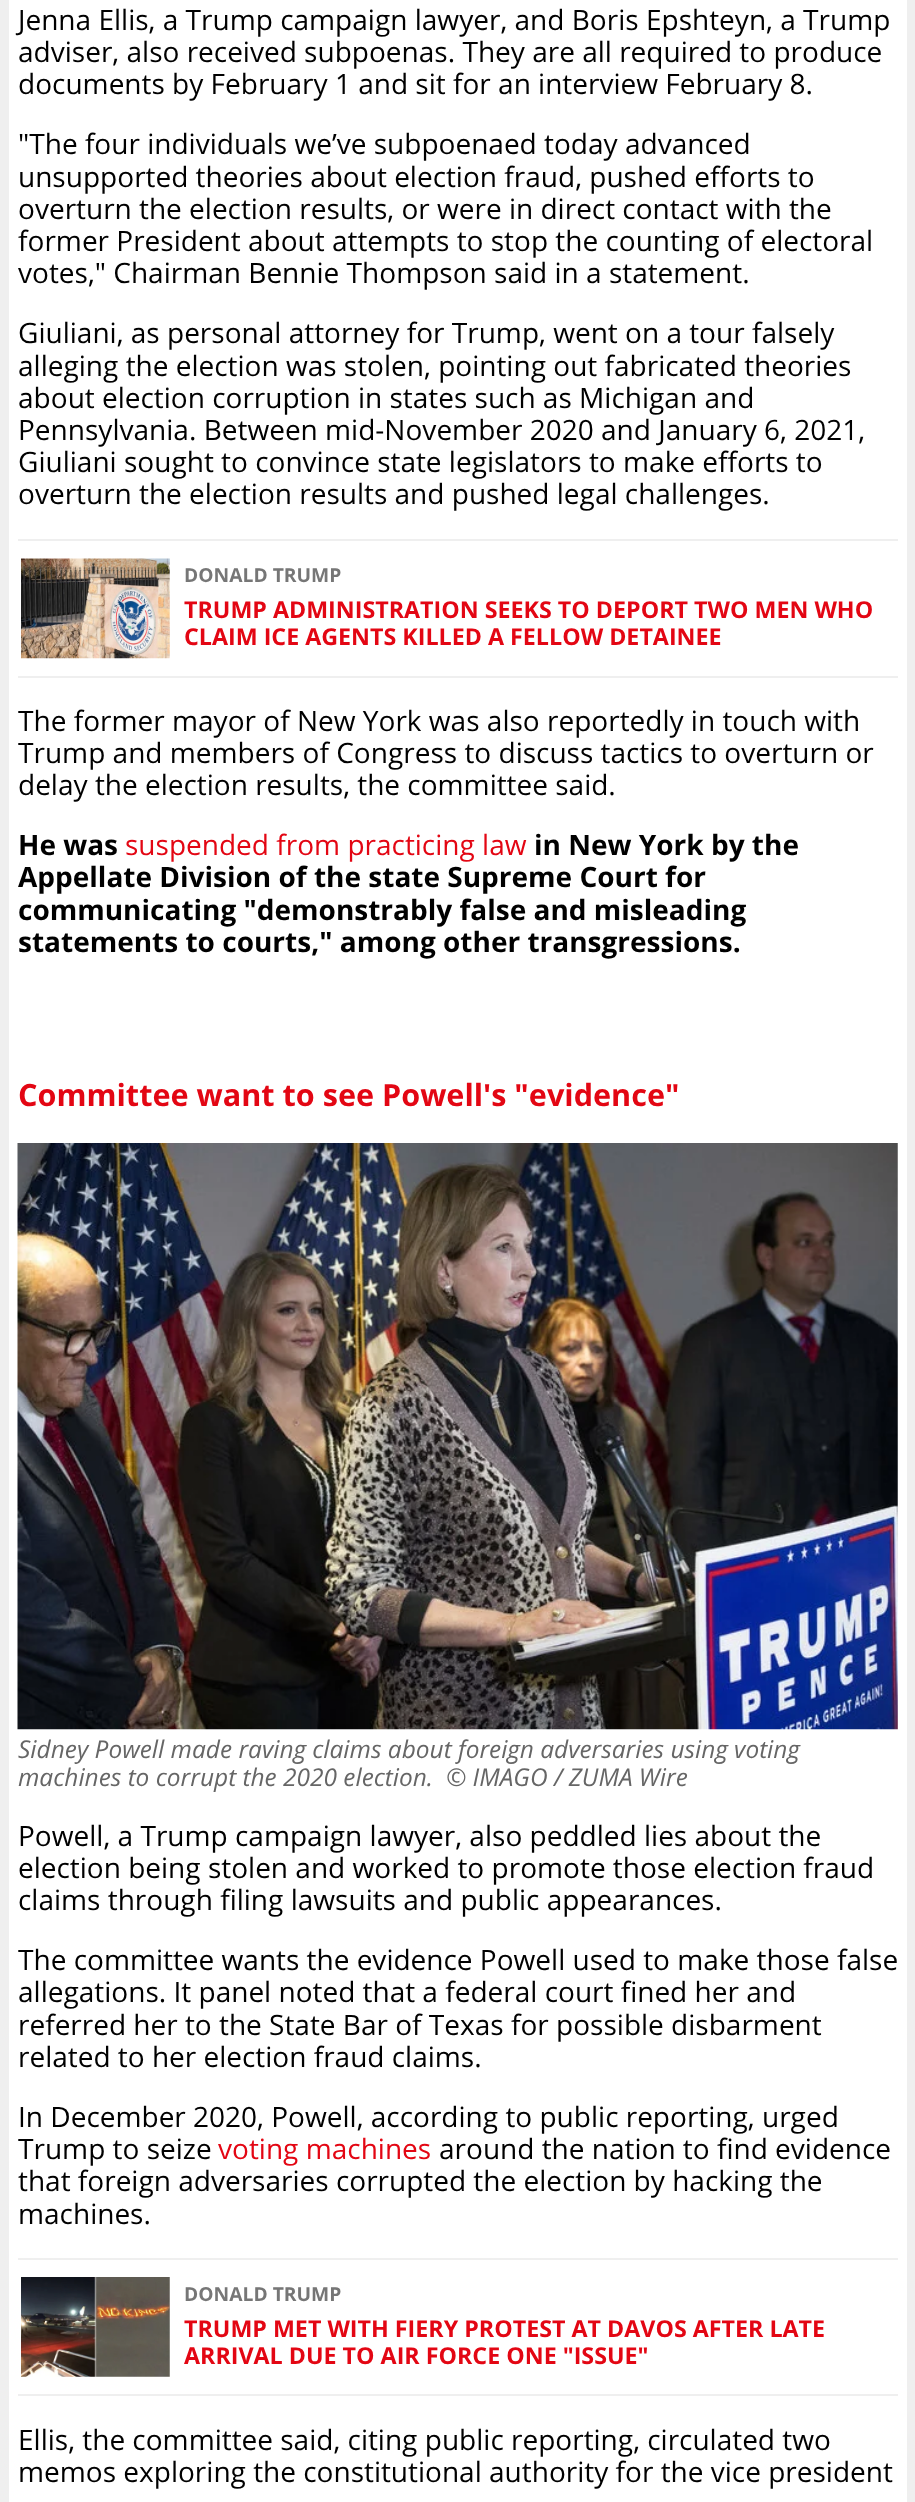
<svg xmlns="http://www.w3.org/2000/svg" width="915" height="2502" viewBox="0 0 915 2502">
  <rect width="100%" height="100%" fill="#efefef"/>
  <rect x="9" y="0" width="898" height="2502" fill="#ffffff"/>
  <text x="18" y="30" font-family="Open Sans" font-size="28" fill="#000000">Jenna Ellis, a Trump campaign lawyer, and Boris Epshteyn, a Trump</text>
  <text x="18" y="62" font-family="Open Sans" font-size="28" fill="#000000">adviser, also received subpoenas. They are all required to produce</text>
  <text x="18" y="94" font-family="Open Sans" font-size="28" fill="#000000">documents by February 1 and sit for an interview February 8.</text>
  <text x="18" y="154" font-family="Open Sans" font-size="28" fill="#000000">"The four individuals we’ve subpoenaed today advanced</text>
  <text x="18" y="187" font-family="Open Sans" font-size="28" fill="#000000">unsupported theories about election fraud, pushed efforts to</text>
  <text x="18" y="219" font-family="Open Sans" font-size="28" fill="#000000">overturn the election results, or were in direct contact with the</text>
  <text x="18" y="251" font-family="Open Sans" font-size="28" fill="#000000">former President about attempts to stop the counting of electoral</text>
  <text x="18" y="283" font-family="Open Sans" font-size="28" fill="#000000">votes," Chairman Bennie Thompson said in a statement.</text>
  <text x="18" y="343" font-family="Open Sans" font-size="28" fill="#000000">Giuliani, as personal attorney for Trump, went on a tour falsely</text>
  <text x="18" y="376" font-family="Open Sans" font-size="28" fill="#000000">alleging the election was stolen, pointing out fabricated theories</text>
  <text x="18" y="408" font-family="Open Sans" font-size="28" fill="#000000">about election corruption in states such as Michigan and</text>
  <text x="18" y="440" font-family="Open Sans" font-size="28" fill="#000000">Pennsylvania. Between mid-November 2020 and January 6, 2021,</text>
  <text x="18" y="472" font-family="Open Sans" font-size="28" fill="#000000">Giuliani sought to convince state legislators to make efforts to</text>
  <text x="18" y="504" font-family="Open Sans" font-size="28" fill="#000000">overturn the election results and pushed legal challenges.</text>
  <rect x="18" y="539" width="880" height="2" fill="#efefef"/>
  <rect x="18" y="676" width="880" height="2" fill="#efefef"/>
  <image x="21" y="558" width="149" height="101" href="img1.png"/>
  <text x="184" y="582" font-family="Open Sans" font-size="19.25" font-weight="bold" fill="#767676">DONALD TRUMP</text>
  <text x="184" y="618" font-family="Open Sans" font-size="23.25" font-weight="bold" fill="#e30613">TRUMP ADMINISTRATION SEEKS TO DEPORT TWO MEN WHO</text>
  <text x="184" y="645" font-family="Open Sans" font-size="23.25" font-weight="bold" fill="#e30613">CLAIM ICE AGENTS KILLED A FELLOW DETAINEE</text>
  <text x="18" y="731" font-family="Open Sans" font-size="28" fill="#000000">The former mayor of New York was also reportedly in touch with</text>
  <text x="18" y="763" font-family="Open Sans" font-size="28" fill="#000000">Trump and members of Congress to discuss tactics to overturn or</text>
  <text x="18" y="795" font-family="Open Sans" font-size="28" fill="#000000">delay the election results, the committee said.</text>
  <text x="18" y="855" font-family="Open Sans" font-size="28" font-weight="bold" fill="#000000">He was</text>
  <text x="125" y="855" font-family="Open Sans" font-size="28" fill="#e30613">suspended from practicing law</text>
  <text x="534" y="855" font-family="Open Sans" font-size="28" font-weight="bold" fill="#000000">in New York by the</text>
  <text x="18" y="887" font-family="Open Sans" font-size="28" font-weight="bold" fill="#000000">Appellate Division of the state Supreme Court for</text>
  <text x="18" y="920" font-family="Open Sans" font-size="28" font-weight="bold" fill="#000000">communicating "demonstrably false and misleading</text>
  <text x="18" y="952" font-family="Open Sans" font-size="28" font-weight="bold" fill="#000000">statements to courts," among other transgressions.</text>
  <text x="18" y="1106" font-family="Open Sans" font-size="30.6" font-weight="bold" fill="#e30613">Committee want to see Powell's "evidence"</text>
  <image x="17" y="1143" width="881" height="587" href="img2.png"/>
  <text x="18" y="1758" font-family="Open Sans" font-size="24.5" font-style="italic" fill="#666666">Sidney Powell made raving claims about foreign adversaries using voting</text>
  <text x="18" y="1786" font-family="Open Sans" font-size="24.5" font-style="italic" fill="#666666" xml:space="preserve">machines to corrupt the 2020 election.  © IMAGO / ZUMA Wire</text>
  <text x="18" y="1846" font-family="Open Sans" font-size="28" fill="#000000">Powell, a Trump campaign lawyer, also peddled lies about the</text>
  <text x="18" y="1878" font-family="Open Sans" font-size="28" fill="#000000">election being stolen and worked to promote those election fraud</text>
  <text x="18" y="1910" font-family="Open Sans" font-size="28" fill="#000000">claims through filing lawsuits and public appearances.</text>
  <text x="18" y="1970" font-family="Open Sans" font-size="28" fill="#000000">The committee wants the evidence Powell used to make those false</text>
  <text x="18" y="2002" font-family="Open Sans" font-size="28" fill="#000000">allegations. It panel noted that a federal court fined her and</text>
  <text x="18" y="2035" font-family="Open Sans" font-size="28" fill="#000000">referred her to the State Bar of Texas for possible disbarment</text>
  <text x="18" y="2067" font-family="Open Sans" font-size="28" fill="#000000">related to her election fraud claims.</text>
  <text x="18" y="2127" font-family="Open Sans" font-size="28" fill="#000000">In December 2020, Powell, according to public reporting, urged</text>
  <text x="18" y="2159" font-family="Open Sans" font-size="28" fill="#000000">Trump to seize</text>
  <text x="218" y="2159" font-family="Open Sans" font-size="28" fill="#e30613">voting machines</text>
  <text x="439" y="2159" font-family="Open Sans" font-size="28" fill="#000000">around the nation to find evidence</text>
  <text x="18" y="2191" font-family="Open Sans" font-size="28" fill="#000000">that foreign adversaries corrupted the election by hacking the</text>
  <text x="18" y="2224" font-family="Open Sans" font-size="28" fill="#000000">machines.</text>
  <rect x="18" y="2258" width="880" height="2" fill="#efefef"/>
  <rect x="18" y="2394" width="880" height="2" fill="#efefef"/>
  <image x="21" y="2277" width="149" height="100" href="img3.png"/>
  <text x="184" y="2301" font-family="Open Sans" font-size="19.25" font-weight="bold" fill="#767676">DONALD TRUMP</text>
  <text x="184" y="2337" font-family="Open Sans" font-size="23.25" font-weight="bold" fill="#e30613">TRUMP MET WITH FIERY PROTEST AT DAVOS AFTER LATE</text>
  <text x="184" y="2364" font-family="Open Sans" font-size="23.25" font-weight="bold" fill="#e30613">ARRIVAL DUE TO AIR FORCE ONE "ISSUE"</text>
  <text x="18" y="2450" font-family="Open Sans" font-size="28" fill="#000000">Ellis, the committee said, citing public reporting, circulated two</text>
  <text x="18" y="2482" font-family="Open Sans" font-size="28" fill="#000000">memos exploring the constitutional authority for the vice president</text>
</svg>
